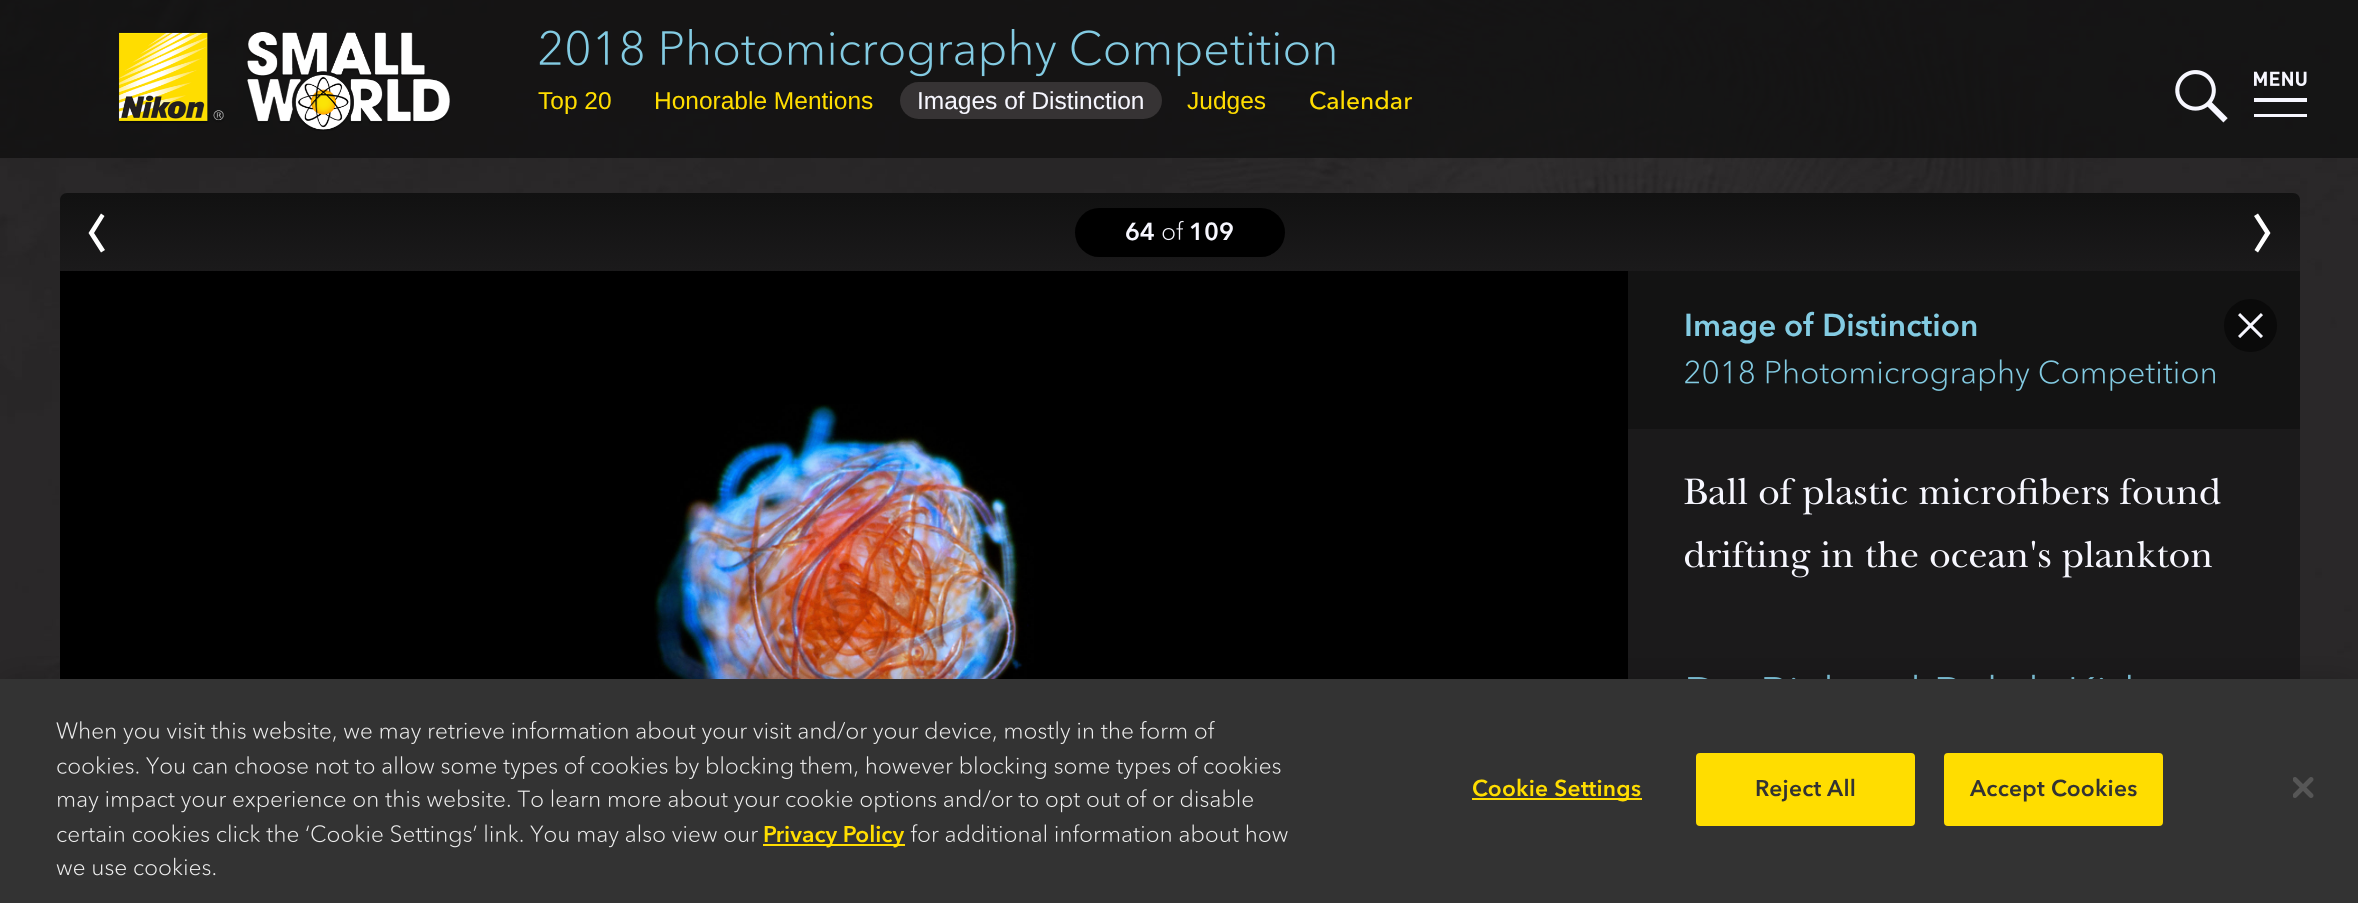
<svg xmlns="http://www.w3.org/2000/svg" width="2358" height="903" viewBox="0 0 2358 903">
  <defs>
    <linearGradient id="g1" gradientUnits="userSpaceOnUse" x1="1180" y1="192" x2="1180" y2="271"><stop offset="0" stop-color="#111111"/><stop offset="1" stop-color="#1b1a1b"/></linearGradient>
    <filter id="blur1" x="-50%" y="-200%" width="200%" height="500%"><feGaussianBlur stdDeviation="16"/></filter>
  </defs>
  <rect width="100%" height="100%" fill="#ffffff"/>
  <image x="0" y="0" width="2358" height="679" href="img1.png"/>
  <rect x="0" y="0" width="2358" height="158" fill="#101010" fill-opacity="0.8"/>
  <image x="118" y="32" width="332" height="99" href="img2.png"/>
  <image x="539" y="29" width="796" height="48" href="img3.png"/>
  <image x="2175" y="70" width="53" height="53" href="img4.png"/>
  <image x="2254" y="71" width="53" height="46" href="img5.png"/>
  <text x="538" y="109" font-family="Liberation Sans" font-size="24.5" fill="#ffdd00">Top 20</text>
  <text x="654" y="109" font-family="Liberation Sans" font-size="24.5" fill="#ffdd00">Honorable Mentions</text>
  <rect x="900" y="82" width="262" height="37" rx="18.5" fill="#363334"/>
  <text x="917" y="109" font-family="Liberation Sans" font-size="24.5" fill="#f7f7ff">Images of Distinction</text>
  <text x="1187" y="109" font-family="Liberation Sans" font-size="24.5" fill="#ffdd00">Judges</text>
  <text x="1309" y="109" font-family="Avenir Next" font-size="24.5" font-weight="500" fill="#ffdd00">Calendar</text>
  <path d="M67 193H2293C2297 193 2300 196 2300 200V271H60V200C60 196 63 193 67 193Z" fill="url(#g1)"/>
  <path d="M105 250L101 252.5L88.5 233L101 213.5L104.5 216L94 233Z" fill="#ffffff"/>
  <rect x="1075" y="208" width="210" height="49" rx="24.5" fill="#000000"/>
  <text x="1125" y="240" font-family="Avenir Next" font-size="24.5" font-weight="bold" fill="#f7f7ff">64</text>
  <image x="1162" y="220" width="22" height="21" href="img6.png"/>
  <text x="1189" y="240" font-family="Avenir Next" font-size="24.5" font-weight="bold" fill="#f7f7ff">109</text>
  <path d="M2254 216L2258 213.5L2270.5 233L2258 252.5L2254.5 250L2265 233Z" fill="#ffffff"/>
  <rect x="1628" y="271" width="672" height="158" fill="#131313"/>
  <circle cx="2250.5" cy="325.5" r="26.5" fill="#0a0a0a"/>
  <image x="2238" y="313" width="25" height="25" href="img7.png"/>
  <rect x="1628" y="429" width="672" height="250" fill="#1b1a1b"/>
  <rect x="60" y="271" width="1568" height="408" fill="#000000"/>
  <image x="654" y="404" width="380" height="275" href="img8.png"/>
  <text x="1684" y="336" font-family="Avenir Next" font-size="31.5" font-weight="bold" fill="#83cbe2">Image of Distinction</text>
  <image x="1685" y="359" width="530" height="32" href="img9.png"/>
  <image x="1684" y="477" width="537" height="38" href="img10.png"/>
  <image x="1685" y="540" width="527" height="38" href="img11.png"/>
  <image x="1688" y="674" width="443" height="5" href="img12.png"/>
  <rect x="0" y="679" width="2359" height="224" fill="#000000" fill-opacity="0.2" filter="url(#blur1)"/>
  <rect x="0" y="679" width="2358" height="224" fill="#333333"/>
  <rect x="1472" y="798" width="170" height="2" fill="#ffdd00"/>
  <text x="1472" y="796" font-family="Avenir Next" font-size="22.75" font-weight="bold" letter-spacing="0.25" fill="#ffdd00">Cookie Settings</text>
  <rect x="1697" y="754" width="217" height="71" rx="3" fill="#ffdd00" stroke="#ffdd00" stroke-width="2"/>
  <text x="1755" y="796" font-family="Avenir Next" font-size="22.75" font-weight="bold" letter-spacing="0.25" fill="#333333">Reject All</text>
  <rect x="1945" y="754" width="217" height="71" rx="3" fill="#ffdd00" stroke="#ffdd00" stroke-width="2"/>
  <text x="1970" y="796" font-family="Avenir Next" font-size="22.75" font-weight="bold" letter-spacing="0.25" fill="#333333">Accept Cookies</text>
  <image x="56" y="721" width="1159" height="23" href="img13.png"/>
  <image x="57" y="756" width="1224" height="23" href="img14.png"/>
  <image x="58" y="789" width="1195" height="24" href="img15.png"/>
  <image x="57" y="824" width="701" height="24" href="img16.png"/>
  <rect x="763" y="844" width="142" height="2" fill="#ffdd00"/>
  <text x="763" y="842" font-family="Avenir Next" font-size="22.75" font-weight="bold" fill="#ffdd00">Privacy Policy</text>
  <image x="910" y="824" width="378" height="18" href="img17.png"/>
  <image x="56" y="857" width="160" height="19" href="img18.png"/>
  <image x="2293" y="777" width="21" height="21" href="img19.png"/>
</svg>
